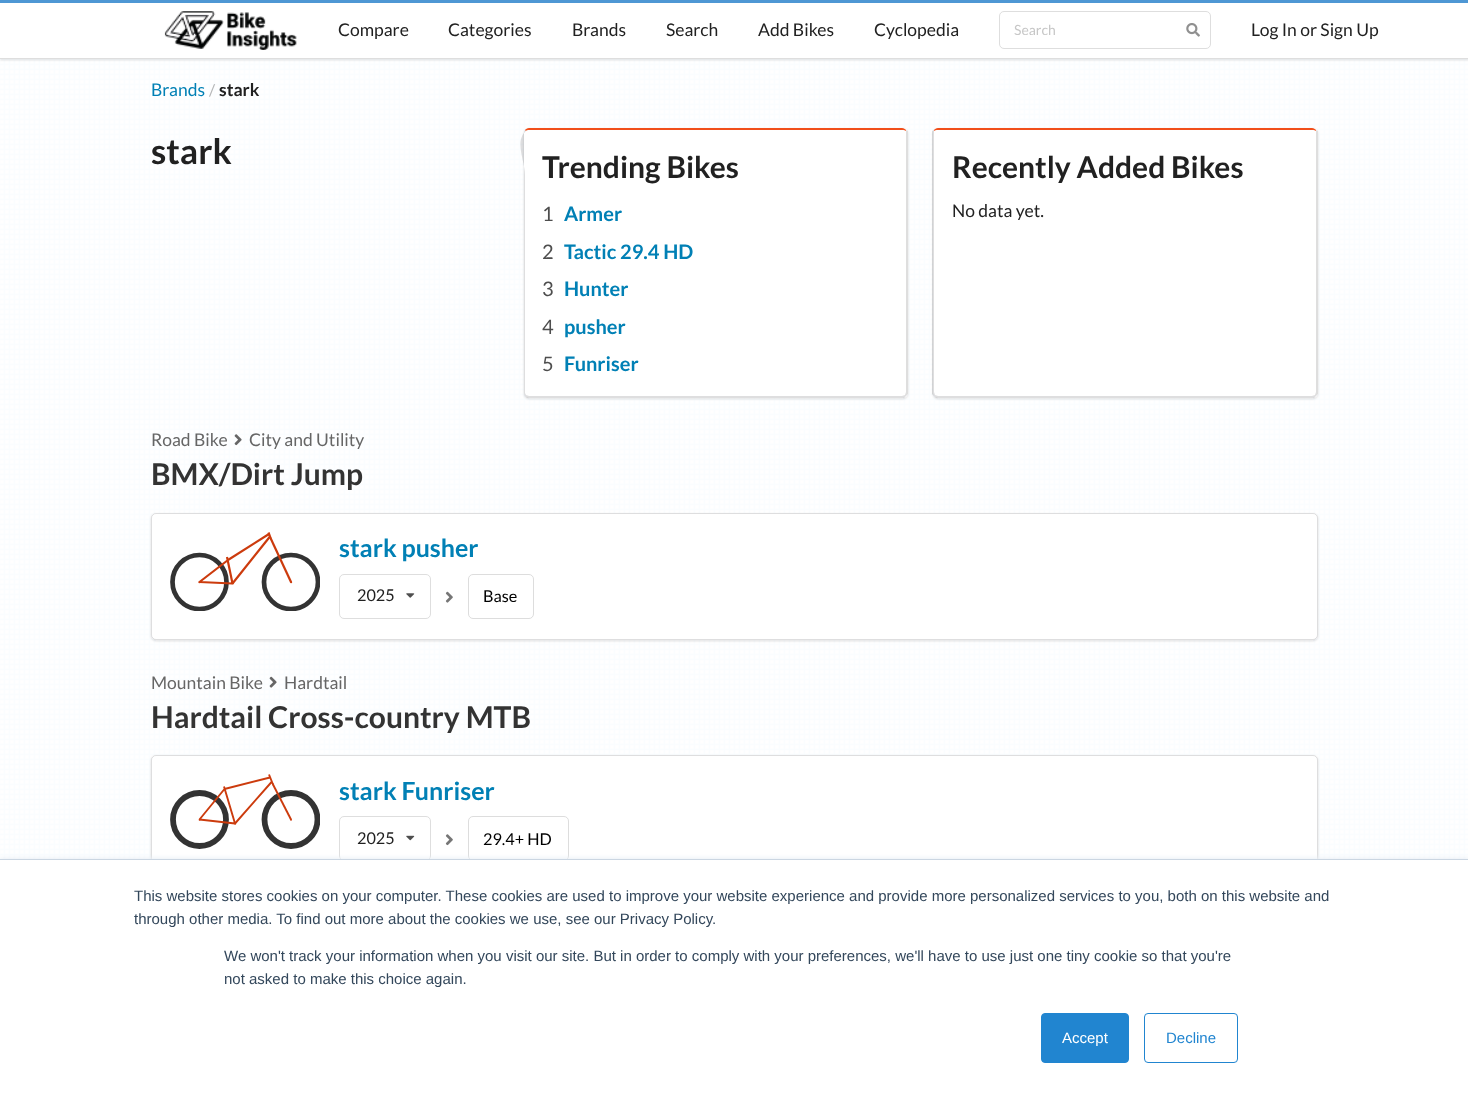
<svg xmlns="http://www.w3.org/2000/svg" width="1468" height="1095" viewBox="0 0 1468 1095">
  <defs>
    <filter id="blur1" x="-50%" y="-200%" width="200%" height="500%"><feGaussianBlur stdDeviation="1"/></filter>
    <clipPath id="clip1"><rect x="170" y="531" width="150" height="80"/></clipPath>
    <clipPath id="clip2"><rect x="170" y="774" width="150" height="75"/></clipPath>
    <filter id="blur2" x="-50%" y="-200%" width="200%" height="500%"><feGaussianBlur stdDeviation="2"/></filter>
  </defs>
  <rect width="100%" height="100%" fill="#ffffff"/>
  <image x="0" y="59" width="1468" height="800" href="img1.png"/>
  <rect x="0" y="1" width="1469" height="59" fill="#222426" fill-opacity="0.15" filter="url(#blur1)"/>
  <rect x="0" y="3" width="1468" height="55" fill="#ffffff"/>
  <rect x="0" y="0" width="1468" height="3" fill="#4e97d4"/>
  <rect x="0" y="58" width="1468" height="1" fill="#dedede"/>
  <image x="164" y="11" width="133" height="39" href="img2.png"/>
  <text x="338" y="36" font-family="Lato" font-size="17.5" fill="#212121">Compare</text>
  <text x="448" y="36" font-family="Lato" font-size="17.5" fill="#212121">Categories</text>
  <text x="572" y="36" font-family="Lato" font-size="17.5" fill="#212121">Brands</text>
  <text x="666" y="36" font-family="Lato" font-size="17.5" fill="#212121">Search</text>
  <text x="758" y="36" font-family="Lato" font-size="17.5" fill="#212121">Add Bikes</text>
  <text x="874" y="36" font-family="Lato" font-size="17.5" fill="#212121">Cyclopedia</text>
  <rect x="999.5" y="11.5" width="211" height="37" rx="4.5" fill="none" stroke="#dedede"/>
  <text x="1014" y="35" font-family="Lato" font-size="14" fill="#c7c7c7">Search</text>
  <image x="1186" y="23" width="14" height="14" href="img3.png"/>
  <text x="1251" y="36" font-family="Lato" font-size="17.5" fill="#212121">Log In or Sign Up</text>
  <text x="151" y="96" font-family="Lato" font-size="17.5" fill="#0180b5">Brands</text>
  <text x="209" y="96" font-family="Lato" font-size="16.25" fill="#b6b7b8">/</text>
  <text x="219" y="96" font-family="Lato" font-size="17.5" font-weight="bold" fill="#212121">stark</text>
  <text x="151" y="164" font-family="Lato" font-size="35" font-weight="bold" fill="#212121">stark</text>
  <rect x="524" y="129" width="384" height="270" rx="5" fill="#222426" fill-opacity="0.15" filter="url(#blur1)"/>
  <rect x="524" y="128" width="384" height="270" rx="5" fill="#ffffff"/>
  <path d="M529 128C527 128 526 129 525 130L526 131C526 130 528 130 529 130H902C904 130 905 130 906 131V130C905 129 904 128 902 128Z" fill="#f14f1b"/>
  <path d="M908 394L906 396L905 395L906 392V131V130L908 131Z" fill="#dedede"/>
  <path d="M527 398L525 396L526 395L529 396H902L905 395L906 396L904 398Z" fill="#222426" fill-opacity="0.15"/>
  <path d="M525 130L524 132V392C524 393 524 395 525 396L526 395L525 393V175C525 161 514 141 526 131Z" fill="#222426" fill-opacity="0.15"/>
  <text x="542" y="178" font-family="Lato" font-size="30" font-weight="bold" fill="#212121">Trending Bikes</text>
  <text x="542" y="221" font-family="Lato" font-size="20" fill="#4e4e4e">1</text>
  <text x="564" y="221" font-family="Lato" font-size="20" font-weight="bold" fill="#0180b5">Armer</text>
  <text x="542" y="259" font-family="Lato" font-size="20" fill="#4e4e4e">2</text>
  <text x="564" y="259" font-family="Lato" font-size="20" font-weight="bold" fill="#0180b5">Tactic 29.4 HD</text>
  <text x="542" y="296" font-family="Lato" font-size="20" fill="#4e4e4e">3</text>
  <text x="564" y="296" font-family="Lato" font-size="20" font-weight="bold" fill="#0180b5">Hunter</text>
  <text x="542" y="334" font-family="Lato" font-size="20" fill="#4e4e4e">4</text>
  <text x="564" y="334" font-family="Lato" font-size="20" font-weight="bold" fill="#0180b5">pusher</text>
  <text x="542" y="371" font-family="Lato" font-size="20" fill="#4e4e4e">5</text>
  <text x="564" y="371" font-family="Lato" font-size="20" font-weight="bold" fill="#0180b5">Funriser</text>
  <rect x="933" y="129" width="385" height="270" rx="5" fill="#222426" fill-opacity="0.15" filter="url(#blur1)"/>
  <rect x="933" y="128" width="385" height="270" rx="5" fill="#ffffff"/>
  <path d="M938 128C936 128 935 129 934 130V131C935 130 936 130 938 130H1312C1314 130 1315 130 1316 131V130C1315 129 1314 128 1312 128Z" fill="#f14f1b"/>
  <path d="M1318 394L1316 396L1315 395L1316 392V131V130L1318 131Z" fill="#dedede"/>
  <path d="M936 398L934 396L935 395L938 396H1312L1315 395L1316 396L1314 398Z" fill="#222426" fill-opacity="0.15"/>
  <path d="M932 131L934 130V131V392L935 395L934 396L932 394Z" fill="#222426" fill-opacity="0.15"/>
  <text x="952" y="178" font-family="Lato" font-size="30" font-weight="bold" fill="#212121">Recently Added Bikes</text>
  <text x="952" y="217" font-family="Lato" font-size="17.5" fill="#212121">No data yet.</text>
  <text x="151" y="446" font-family="Lato" font-size="17.5" fill="#666666">Road Bike</text>
  <image x="234" y="434" width="8" height="12" href="img4.png"/>
  <text x="249" y="446" font-family="Lato" font-size="17.5" fill="#666666">City and Utility</text>
  <text x="151" y="485" font-family="Lato" font-size="30" font-weight="bold" fill="#333333">BMX/Dirt Jump</text>
  <rect x="151" y="514" width="1167" height="127" rx="5" fill="#222426" fill-opacity="0.15" filter="url(#blur1)"/>
  <rect x="151" y="513" width="1167" height="127" rx="5" fill="#ffffff"/>
  <rect x="151.5" y="513.5" width="1166" height="126" rx="4.5" fill="none" stroke="#222426" stroke-opacity="0.15"/>
  <g clip-path="url(#clip1)">
    <circle cx="199.5" cy="582" r="27" fill="none" stroke="#333333" stroke-width="4.7"/>
    <circle cx="291" cy="582" r="27" fill="none" stroke="#333333" stroke-width="4.7"/>
  </g>
  <circle cx="199.4" cy="582.2" r="1.1" fill="#cc3b0d"/>
  <circle cx="232.7" cy="583.5" r="1.1" fill="#cc3b0d"/>
  <path d="M199.5 582L232.5 583.5M227 557L232.5 583.5M228 560L199.5 582" fill="none" stroke="#cc3b0d" stroke-width="2.2"/>
  <path d="M268.5 532.5L270.5 538M228 560L269 534M232.5 583.5L270 536.5" fill="none" stroke="#cc3b0d" stroke-width="2.2"/>
  <circle cx="291.1" cy="582.2" r="1.1" fill="#cc3b0d"/>
  <path d="M270.5 538L291 582" fill="none" stroke="#cc3b0d" stroke-width="2.2"/>
  <circle cx="270.5" cy="538.1" r="1.1" fill="#cc3b0d"/>
  <text x="339" y="557" font-family="Lato" font-size="25" font-weight="bold" fill="#0180b5">stark pusher</text>
  <rect x="339.5" y="574.5" width="91" height="44" rx="4.5" fill="none" stroke="#dedede"/>
  <text x="357" y="601" font-family="Lato" font-size="16.25" fill="#212121">2025</text>
  <image x="406" y="593" width="9" height="5" href="img5.png"/>
  <image x="445" y="591" width="8" height="12" href="img6.png"/>
  <rect x="468.5" y="574.5" width="65" height="44" rx="4.5" fill="none" stroke="#dddddd"/>
  <text x="483" y="602" font-family="Lato" font-size="16.25" fill="#000000">Base</text>
  <text x="151" y="689" font-family="Lato" font-size="17.5" fill="#666666">Mountain Bike</text>
  <image x="269" y="676" width="8" height="12" href="img7.png"/>
  <text x="284" y="689" font-family="Lato" font-size="17.5" fill="#666666">Hardtail</text>
  <text x="151" y="728" font-family="Lato" font-size="30" font-weight="bold" fill="#333333">Hardtail Cross-country MTB</text>
  <rect x="151" y="756" width="1167" height="128" rx="5" fill="#222426" fill-opacity="0.15" filter="url(#blur1)"/>
  <rect x="151" y="755" width="1167" height="128" rx="5" fill="#ffffff"/>
  <rect x="151.5" y="755.5" width="1166" height="127" rx="4.5" fill="none" stroke="#222426" stroke-opacity="0.15"/>
  <circle cx="199.5" cy="819.5" r="26.5" fill="none" stroke="#333333" stroke-width="5.8"/>
  <circle cx="199.6" cy="819.7" r="1" fill="#cc3b0d"/>
  <circle cx="235.2" cy="823.7" r="1" fill="#cc3b0d"/>
  <path d="M199.5 819.5L235 823.5M224 786.5L235 823.5M224.5 789L199.5 819.5" fill="none" stroke="#cc3b0d" stroke-width="1.9"/>
  <g clip-path="url(#clip2)">
    <circle cx="291" cy="819.5" r="26.5" fill="none" stroke="#333333" stroke-width="5.8"/>
  </g>
  <path d="M269 774.5L273 784.5M224.5 789L270 777.5M235 823.5L272 781.5" fill="none" stroke="#cc3b0d" stroke-width="1.9"/>
  <circle cx="291" cy="819.7" r="1" fill="#cc3b0d"/>
  <path d="M273 784.5L291 819.5" fill="none" stroke="#cc3b0d" stroke-width="1.9"/>
  <circle cx="273" cy="784.3" r="1" fill="#cc3b0d"/>
  <text x="339" y="800" font-family="Lato" font-size="25" font-weight="bold" fill="#0180b5">stark Funriser</text>
  <rect x="339.5" y="816.5" width="91" height="44" rx="4.5" fill="none" stroke="#dedede"/>
  <text x="357" y="844" font-family="Lato" font-size="16.25" fill="#212121">2025</text>
  <image x="406" y="835" width="9" height="6" href="img8.png"/>
  <image x="445" y="834" width="8" height="12" href="img9.png"/>
  <rect x="468.5" y="816.5" width="100" height="44" rx="4.5" fill="none" stroke="#dddddd"/>
  <text x="483" y="845" font-family="Lato" font-size="16.25" fill="#000000">29.4+ HD</text>
  <rect x="0" y="858" width="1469" height="236" fill="#eaf0f6" filter="url(#blur2)"/>
  <rect x="0" y="860" width="1468" height="235" fill="#ffffff"/>
  <rect x="0" y="859" width="1468" height="1" fill="#cbd6e2"/>
  <text x="134" y="901" font-family="Liberation Sans" font-size="15" fill="#33475b">This website stores cookies on your computer. These cookies are used to improve your website experience and provide more personalized services to you, both on this website and</text>
  <text x="134" y="924" font-family="Liberation Sans" font-size="15" fill="#33475b">through other media. To find out more about the cookies we use, see our Privacy Policy.</text>
  <text x="224" y="961" font-family="Liberation Sans" font-size="15" fill="#33475b">We won't track your information when you visit our site. But in order to comply with your preferences, we'll have to use just one tiny cookie so that you're</text>
  <text x="224" y="984" font-family="Liberation Sans" font-size="15" fill="#33475b">not asked to make this choice again.</text>
  <rect x="1041.5" y="1013.5" width="87" height="49" rx="3.5" fill="#2185d0" stroke="#2185d0"/>
  <text x="1062" y="1043" font-family="Liberation Sans" font-size="15" fill="#ffffff">Accept</text>
  <rect x="1144.5" y="1013.5" width="93" height="49" rx="3.5" fill="none" stroke="#2185d0"/>
  <text x="1166" y="1043" font-family="Liberation Sans" font-size="15" fill="#2185d0">Decline</text>
</svg>
